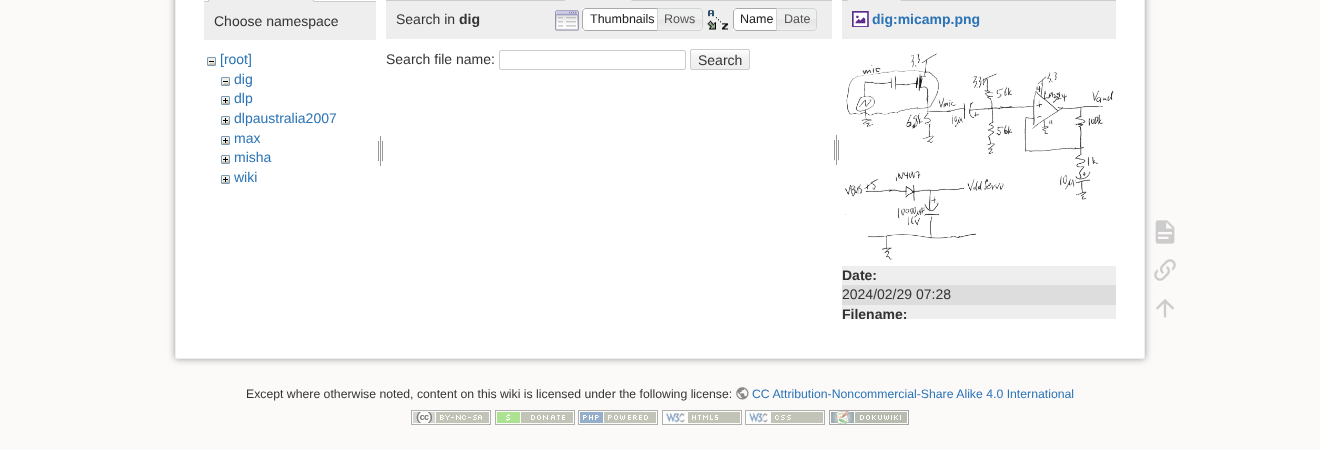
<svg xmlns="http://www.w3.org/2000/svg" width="1320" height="450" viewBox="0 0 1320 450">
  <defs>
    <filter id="blur1" x="-50%" y="-200%" width="200%" height="500%"><feGaussianBlur stdDeviation="3.5"/></filter>
    <clipPath id="clip1"><rect x="690" y="49" width="60" height="21" rx="2"/></clipPath>
    <linearGradient id="g1" gradientUnits="userSpaceOnUse" x1="720" y1="50" x2="720" y2="69"><stop offset="0" stop-color="#ffffff"/><stop offset="0.3" stop-color="#f4f4f4"/><stop offset="0.99" stop-color="#eeeeee"/><stop offset="0.99" stop-color="#cccccc"/></linearGradient>
    <clipPath id="clip2"><rect x="842" y="49" width="274" height="270"/></clipPath>
  </defs>
  <rect width="100%" height="100%" fill="#fbfaf9"/>
  <rect x="175" y="-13" width="970" height="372" rx="2" fill="#999999" filter="url(#blur1)"/>
  <rect x="175.5" y="-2.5" width="969" height="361" rx="1.5" fill="#ffffff" stroke="#eeeeee"/>
  <rect x="204" y="1" width="172" height="1" fill="#cccccc"/>
  <path d="M312-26L299-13L314 2V-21C314-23 313-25 312-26Z" fill="#cccccc"/>
  <path d="M314 2L299-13H223L208 2Z" fill="#eeeeee"/>
  <path d="M208 2V-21C208-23 209-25 210-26L223-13Z" fill="#cccccc"/>
  <rect x="204" y="2" width="172" height="38" fill="#eeeeee"/>
  <text x="214" y="26" font-family="Liberation Sans" font-size="14" fill="#333333">Choose namespace</text>
  <image x="207" y="57" width="9" height="9" href="img1.png"/>
  <text x="220" y="64" font-family="Liberation Sans" font-size="14" fill="#2b73b7">[root]</text>
  <image x="221" y="77" width="9" height="9" href="img1.png"/>
  <text x="234" y="84" font-family="Liberation Sans" font-size="14" fill="#2b73b7">dig</text>
  <image x="221" y="96" width="9" height="9" href="img2.png"/>
  <text x="234" y="103" font-family="Liberation Sans" font-size="14" fill="#2b73b7">dlp</text>
  <image x="221" y="116" width="9" height="9" href="img2.png"/>
  <text x="234" y="123" font-family="Liberation Sans" font-size="14" fill="#2b73b7">dlpaustralia2007</text>
  <image x="221" y="136" width="9" height="9" href="img2.png"/>
  <text x="234" y="143" font-family="Liberation Sans" font-size="14" fill="#2b73b7">max</text>
  <image x="221" y="155" width="9" height="9" href="img2.png"/>
  <text x="234" y="162" font-family="Liberation Sans" font-size="14" fill="#2b73b7">misha</text>
  <image x="221" y="175" width="9" height="9" href="img2.png"/>
  <text x="234" y="182" font-family="Liberation Sans" font-size="14" fill="#2b73b7">wiki</text>
  <image x="378" y="135" width="5" height="31" href="img3.png"/>
  <rect x="386" y="0" width="446" height="1" fill="#cccccc"/>
  <path d="M632 1L617-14H579L564 1Z" fill="#eeeeee"/>
  <path d="M564 1V-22C564-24 565-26 566-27L579-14Z" fill="#cccccc"/>
  <rect x="386" y="1" width="446" height="38" fill="#eeeeee"/>
  <text x="396" y="24" font-family="Liberation Sans" font-size="14" fill="#333333">Search in</text>
  <text x="459" y="24" font-family="Liberation Sans" font-size="14" font-weight="bold" fill="#333333">dig</text>
  <image x="555" y="10" width="24" height="21" href="img4.png"/>
  <rect x="582" y="8" width="75" height="23" fill="#ffffff"/>
  <path d="M586 8.5H661.5V30.5H586C584 30.5 582.5 29 582.5 27V12C582.5 10 584 8.5 586 8.5Z" fill="none" stroke="#aaaaaa"/>
  <text x="590" y="23" font-family="Liberation Sans" font-size="12.5" fill="#212121">Thumbnails</text>
  <image x="658" y="8" width="45" height="23" href="img5.png"/>
  <path d="M657.5 8.5H699C701 8.5 702.5 10 702.5 12V27C702.5 29 701 30.5 699 30.5H657.5Z" fill="none" stroke="#d3d3d3"/>
  <text x="664" y="23" font-family="Liberation Sans" font-size="12.5" fill="#555555">Rows</text>
  <image x="707" y="10" width="21" height="20" href="img6.png"/>
  <rect x="733" y="8" width="43" height="23" fill="#ffffff"/>
  <path d="M737 8.5H780.5V30.5H737C735 30.5 733.5 29 733.5 27V12C733.5 10 735 8.5 737 8.5Z" fill="none" stroke="#aaaaaa"/>
  <text x="740" y="23" font-family="Liberation Sans" font-size="12.5" fill="#212121">Name</text>
  <image x="777" y="8" width="40" height="23" href="img7.png"/>
  <path d="M776.5 8.5H813C815 8.5 816.5 10 816.5 12V27C816.5 29 815 30.5 813 30.5H776.5Z" fill="none" stroke="#d3d3d3"/>
  <text x="784" y="23" font-family="Liberation Sans" font-size="12.5" fill="#555555">Date</text>
  <text x="386" y="64" font-family="Liberation Sans" font-size="14" fill="#333333">Search file name:</text>
  <rect x="499.5" y="50.5" width="186" height="19" rx="1.5" fill="none" stroke="#cccccc"/>
  <g clip-path="url(#clip1)">
    <rect x="690" y="50" width="60" height="19" fill="url(#g1)"/>
  </g>
  <rect x="690.5" y="49.5" width="59" height="20" rx="1.5" fill="none" stroke="#cccccc"/>
  <text x="698" y="65" font-family="Liberation Sans" font-size="14" fill="#333333">Search</text>
  <image x="834" y="134" width="5" height="31" href="img3.png"/>
  <rect x="842" y="0" width="274" height="1" fill="#cccccc"/>
  <path d="M901 1L886-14H862L847 1Z" fill="#eeeeee"/>
  <path d="M847 1V-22C847-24 848-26 849-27L862-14Z" fill="#cccccc"/>
  <rect x="842" y="1" width="274" height="38" fill="#eeeeee"/>
  <image x="852" y="11" width="17" height="16" href="img8.png"/>
  <text x="872" y="24" font-family="Liberation Sans" font-size="14" font-weight="bold" fill="#2b73b7">dig:micamp.png</text>
  <image x="845" y="53" width="269" height="207" href="img9.png"/>
  <rect x="842" y="266" width="274" height="19" fill="#eeeeee"/>
  <text x="842" y="280" font-family="Liberation Sans" font-size="14" font-weight="bold" fill="#333333">Date:</text>
  <rect x="842" y="285" width="274" height="20" fill="#dddddd"/>
  <text x="842" y="299" font-family="Liberation Sans" font-size="14" fill="#333333">2024/02/29 07:28</text>
  <rect x="842" y="305" width="274" height="14" fill="#eeeeee"/>
  <g clip-path="url(#clip2)">
    <text x="842" y="319" font-family="Liberation Sans" font-size="14" font-weight="bold" fill="#333333">Filename:</text>
  </g>
  <image x="1155" y="220" width="20" height="24" href="img10.png"/>
  <image x="1154" y="259" width="22" height="22" href="img11.png"/>
  <image x="1156" y="299" width="18" height="19" href="img12.png"/>
  <text x="246" y="398" font-family="Liberation Sans" font-size="12.25" fill="#333333">Except where otherwise noted, content on this wiki is licensed under the following license:</text>
  <image x="736" y="387" width="13" height="13" href="img13.png"/>
  <text x="752" y="398" font-family="Liberation Sans" font-size="12.25" fill="#2b73b7">CC Attribution-Noncommercial-Share Alike 4.0 International</text>
  <image x="411" y="410" width="80" height="15" href="img14.png"/>
  <image x="495" y="410" width="80" height="15" href="img15.png"/>
  <image x="578" y="410" width="80" height="15" href="img16.png"/>
  <image x="662" y="410" width="80" height="15" href="img17.png"/>
  <image x="745" y="410" width="80" height="15" href="img18.png"/>
  <image x="829" y="410" width="80" height="15" href="img19.png"/>
</svg>
